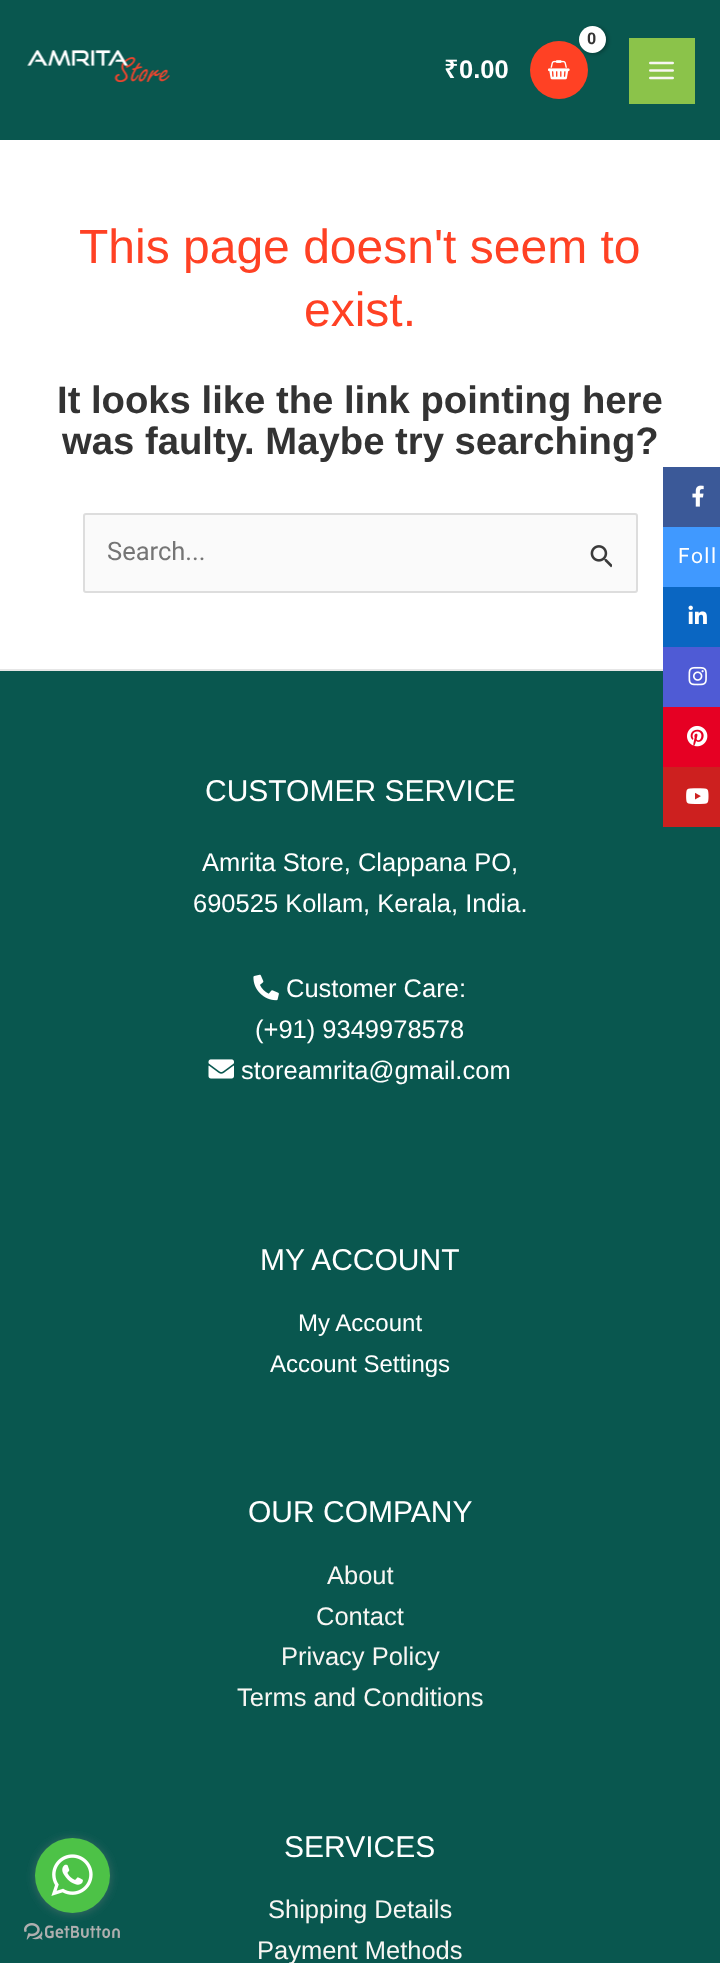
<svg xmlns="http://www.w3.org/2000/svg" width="720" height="1963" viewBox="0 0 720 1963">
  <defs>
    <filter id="blur1" x="-50%" y="-200%" width="200%" height="500%"><feGaussianBlur stdDeviation="2"/></filter>
    <filter id="blur2" x="-50%" y="-200%" width="200%" height="500%"><feGaussianBlur stdDeviation="5"/></filter>
  </defs>
  <rect width="100%" height="100%" fill="#ffffff"/>
  <rect x="0" y="0" width="720" height="140" fill="#09574f"/>
  <image x="27" y="50" width="143" height="33" href="img1.png"/>
  <circle cx="559" cy="70" r="29" fill="#ff4124"/>
  <rect x="581" y="27" width="27" height="27" rx="13.5" fill="#000000" fill-opacity="0.3" filter="url(#blur1)"/>
  <circle cx="592.5" cy="39.5" r="13.5" fill="#ffffff"/>
  <text x="587" y="44" font-family="Roboto" font-size="16" font-weight="bold" letter-spacing="-1" fill="#333333">0</text>
  <image x="548" y="60" width="22" height="20" href="img2.png"/>
  <text x="444" y="78" font-family="Noto Sans" font-size="25.5" font-weight="600" fill="#ffffff">₹</text>
  <text x="459" y="78" font-family="Liberation Sans" font-size="25.5" font-weight="bold" fill="#ffffff">0.00</text>
  <rect x="629" y="38" width="66" height="66" fill="#8bc34a"/>
  <image x="649" y="61" width="25" height="19" href="img3.png"/>
  <text x="79" y="263" font-family="Liberation Sans" font-size="48" fill="#ff4124">This page doesn't seem to</text>
  <text x="304" y="326" font-family="Liberation Sans" font-size="48" fill="#ff4124">exist.</text>
  <text x="57" y="413" font-family="Liberation Sans" font-size="38.25" font-weight="bold" fill="#333333">It looks like the link pointing here</text>
  <text x="62" y="454" font-family="Liberation Sans" font-size="38.25" font-weight="bold" fill="#333333">was faulty. Maybe try searching?</text>
  <rect x="84" y="514" width="553" height="78" rx="2" fill="#fafafa" stroke="#dddddd" stroke-width="2"/>
  <text x="107" y="560" font-family="Roboto" font-size="25.5" fill="#757575">Search...</text>
  <image x="590" y="545" width="22" height="23" href="img4.png"/>
  <rect x="0" y="671" width="720" height="1292" fill="#09574f"/>
  <rect x="663" y="467" width="57" height="60" fill="#3b5998"/>
  <image x="692" y="485" width="12" height="22" href="img5.png"/>
  <rect x="663" y="527" width="57" height="60" fill="#4099ff"/>
  <text x="678" y="563" font-family="Roboto" font-size="21" letter-spacing="1.5" fill="#ffffff">Foll</text>
  <rect x="663" y="587" width="57" height="60" fill="#0a66c2"/>
  <image x="688" y="605" width="19" height="19" href="img6.png"/>
  <rect x="663" y="647" width="57" height="60" fill="#4f5bd5"/>
  <image x="688" y="666" width="19" height="20" href="img7.png"/>
  <rect x="663" y="707" width="57" height="60" fill="#e60023"/>
  <image x="687" y="725" width="21" height="22" href="img8.png"/>
  <rect x="663" y="767" width="57" height="60" fill="#cd201f"/>
  <image x="686" y="788" width="23" height="16" href="img9.png"/>
  <rect x="0" y="669" width="663" height="2" fill="#e6e6e6"/>
  <text x="205" y="801" font-family="Liberation Sans" font-size="30" fill="#ffffff">CUSTOMER SERVICE</text>
  <text x="202" y="871" font-family="Liberation Sans" font-size="25.5" fill="#ffffff">Amrita Store, Clappana PO,</text>
  <text x="193" y="912" font-family="Liberation Sans" font-size="25.5" fill="#ffffff">690525 Kollam, Kerala, India.</text>
  <image x="253" y="974" width="26" height="27" href="img10.png"/>
  <text x="286" y="997" font-family="Liberation Sans" font-size="25.5" fill="#ffffff">Customer Care:</text>
  <text x="255" y="1038" font-family="Liberation Sans" font-size="25.5" fill="#ffffff">(+91) 9349978578</text>
  <image x="208" y="1059" width="26" height="20" href="img11.png"/>
  <text x="241" y="1079" font-family="Liberation Sans" font-size="25.5" fill="#ffffff">storeamrita@gmail.com</text>
  <text x="260" y="1270" font-family="Liberation Sans" font-size="30" fill="#ffffff">MY ACCOUNT</text>
  <text x="298" y="1331" font-family="Liberation Sans" font-size="24" fill="#ffffff">My Account</text>
  <text x="270" y="1372" font-family="Liberation Sans" font-size="24" fill="#ffffff">Account Settings</text>
  <text x="248" y="1522" font-family="Liberation Sans" font-size="30" fill="#ffffff">OUR COMPANY</text>
  <text x="327" y="1584" font-family="Liberation Sans" font-size="25.5" fill="#f8f6f3">About</text>
  <text x="316" y="1625" font-family="Liberation Sans" font-size="25.5" fill="#f8f6f3">Contact</text>
  <text x="281" y="1665" font-family="Liberation Sans" font-size="25.5" fill="#f8f6f3">Privacy Policy</text>
  <text x="237" y="1706" font-family="Liberation Sans" font-size="25.5" fill="#f8f6f3">Terms and Conditions</text>
  <text x="284" y="1857" font-family="Liberation Sans" font-size="30" fill="#ffffff">SERVICES</text>
  <text x="268" y="1918" font-family="Liberation Sans" font-size="25.5" fill="#f8f6f3">Shipping Details</text>
  <text x="257" y="1959" font-family="Liberation Sans" font-size="25.5" fill="#f8f6f3">Payment Methods</text>
  <image x="24" y="1923" width="96" height="17" href="img13.png"/>
  <rect x="35" y="1839" width="75" height="75" rx="37.5" fill="#888888" fill-opacity="0.4" filter="url(#blur2)"/>
  <circle cx="72.5" cy="1875.5" r="37.5" fill="#4dc247"/>
  <image x="51" y="1854" width="42" height="42" href="img12.png"/>
</svg>
